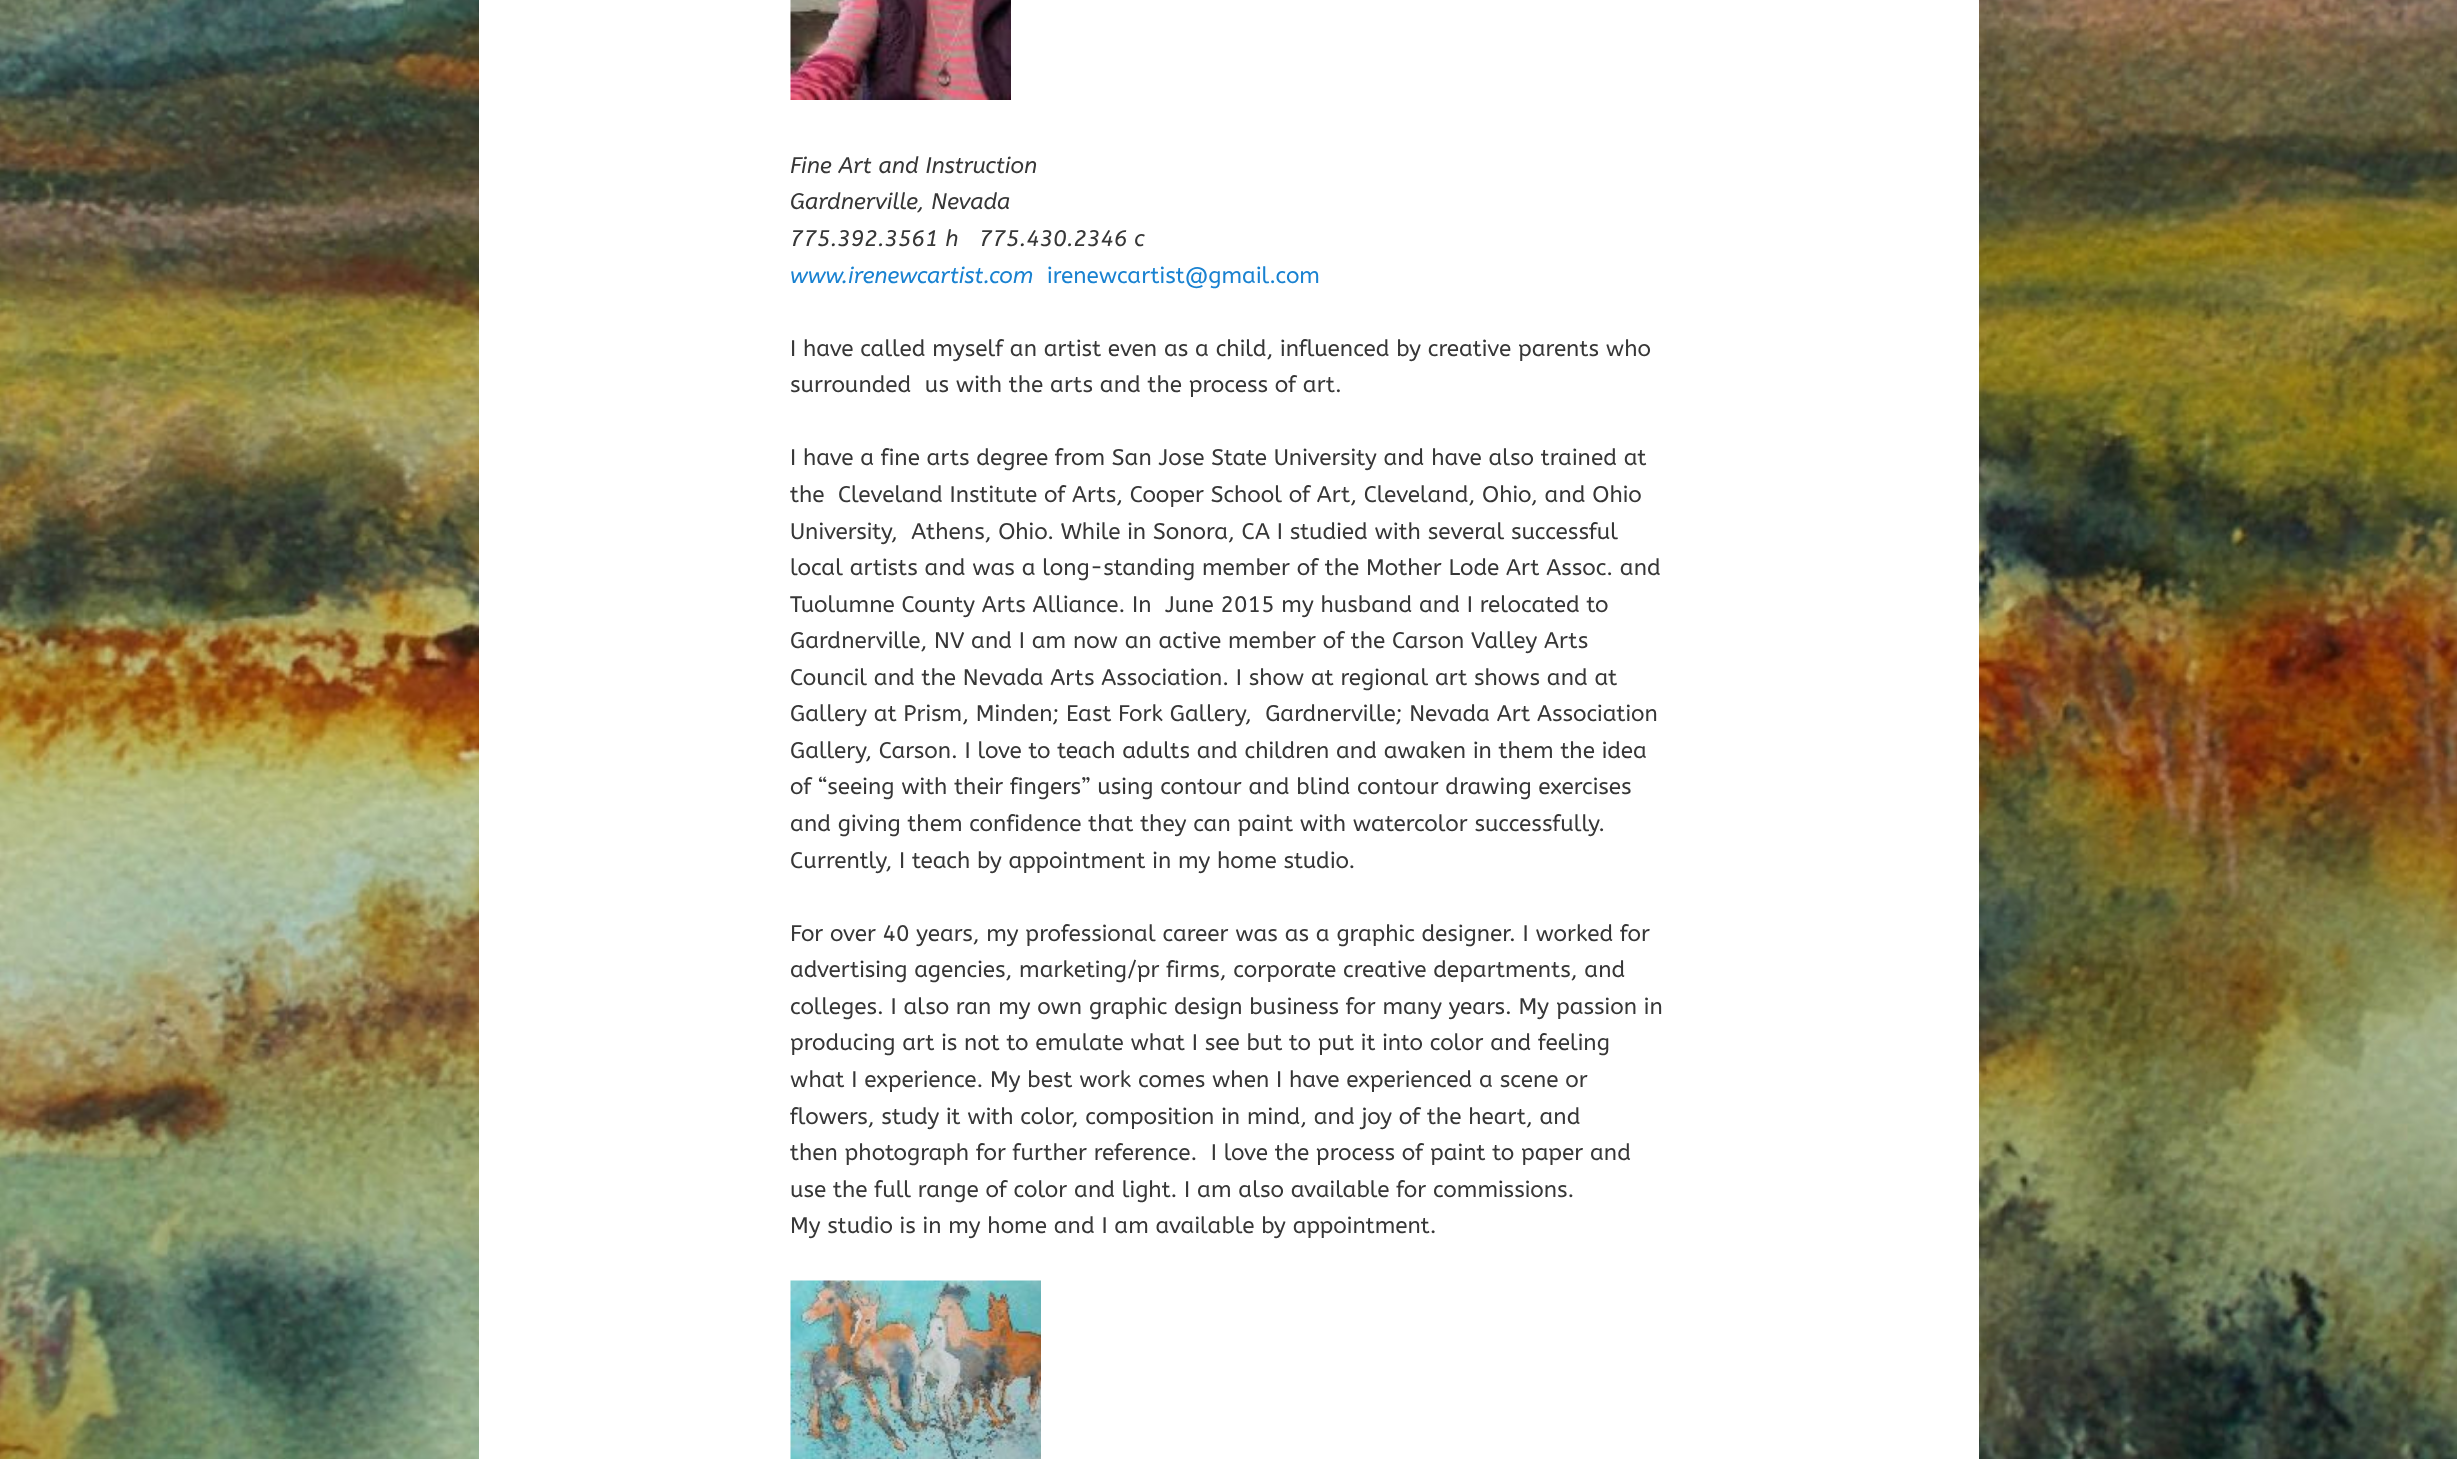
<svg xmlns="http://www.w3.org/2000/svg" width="2457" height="1459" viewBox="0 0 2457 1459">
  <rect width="100%" height="100%" fill="#ffffff"/>
  <image x="0" y="0" width="2457" height="1459" href="img1.png"/>
  <rect x="479" y="0" width="1500" height="1459" fill="#ffffff"/>
  <image x="790" y="0" width="221" height="100" href="img2.png"/>
  <text x="790" y="173" font-family="ABeeZee" font-size="22.5" font-style="italic" fill="#373737">Fine Art and Instruction</text>
  <text x="790" y="209" font-family="ABeeZee" font-size="22.5" font-style="italic" fill="#373737">Gardnerville, Nevada</text>
  <text x="790" y="246" font-family="ABeeZee" font-size="22.5" font-style="italic" fill="#373737">775.392.3561 h</text>
  <text x="979" y="246" font-family="ABeeZee" font-size="22.5" font-style="italic" fill="#373737">775.430.2346 c</text>
  <text x="790" y="283" font-family="ABeeZee" font-size="22.5" font-style="italic" fill="#1982d1">www.irenewcartist.com</text>
  <text x="1047" y="283" font-family="ABeeZee" font-size="22.5" fill="#1982d1">irenewcartist@gmail.com</text>
  <text x="790" y="356" font-family="ABeeZee" font-size="22.5" fill="#373737">I have called myself an artist even as a child, influenced by creative parents who</text>
  <text x="790" y="392" font-family="ABeeZee" font-size="22.5" fill="#373737" xml:space="preserve">surrounded  us with the arts and the process of art.</text>
  <text x="790" y="465" font-family="ABeeZee" font-size="22.5" fill="#373737">I have a fine arts degree from San Jose State University and have also trained at</text>
  <text x="790" y="502" font-family="ABeeZee" font-size="22.5" fill="#373737" xml:space="preserve">the  Cleveland Institute of Arts, Cooper School of Art, Cleveland, Ohio, and Ohio</text>
  <text x="790" y="539" font-family="ABeeZee" font-size="22.5" fill="#373737" xml:space="preserve">University,  Athens, Ohio. While in Sonora, CA I studied with several successful</text>
  <text x="790" y="575" font-family="ABeeZee" font-size="22.5" fill="#373737">local artists and was a long-standing member of the Mother Lode Art Assoc. and</text>
  <text x="790" y="612" font-family="ABeeZee" font-size="22.5" fill="#373737" xml:space="preserve">Tuolumne County Arts Alliance. In  June 2015 my husband and I relocated to</text>
  <text x="790" y="648" font-family="ABeeZee" font-size="22.5" fill="#373737">Gardnerville, NV and I am now an active member of the Carson Valley Arts</text>
  <text x="790" y="685" font-family="ABeeZee" font-size="22.5" fill="#373737">Council and the Nevada Arts Association. I show at regional art shows and at</text>
  <text x="790" y="721" font-family="ABeeZee" font-size="22.5" fill="#373737" xml:space="preserve">Gallery at Prism, Minden; East Fork Gallery,  Gardnerville; Nevada Art Association</text>
  <text x="790" y="758" font-family="ABeeZee" font-size="22.5" fill="#373737">Gallery, Carson. I love to teach adults and children and awaken in them the idea</text>
  <text x="790" y="794" font-family="ABeeZee" font-size="22.5" fill="#373737">of “seeing with their fingers” using contour and blind contour drawing exercises</text>
  <text x="790" y="831" font-family="ABeeZee" font-size="22.5" fill="#373737">and giving them confidence that they can paint with watercolor successfully.</text>
  <text x="790" y="868" font-family="ABeeZee" font-size="22.5" fill="#373737">Currently, I teach by appointment in my home studio.</text>
  <text x="790" y="941" font-family="ABeeZee" font-size="22.5" fill="#373737">For over 40 years, my professional career was as a graphic designer. I worked for</text>
  <text x="790" y="977" font-family="ABeeZee" font-size="22.5" fill="#373737">advertising agencies, marketing/pr firms, corporate creative departments, and</text>
  <text x="790" y="1014" font-family="ABeeZee" font-size="22.5" fill="#373737">colleges. I also ran my own graphic design business for many years. My passion in</text>
  <text x="790" y="1050" font-family="ABeeZee" font-size="22.5" fill="#373737">producing art is not to emulate what I see but to put it into color and feeling</text>
  <text x="790" y="1087" font-family="ABeeZee" font-size="22.5" fill="#373737">what I experience. My best work comes when I have experienced a scene or</text>
  <text x="790" y="1124" font-family="ABeeZee" font-size="22.5" fill="#373737">flowers, study it with color, composition in mind, and joy of the heart, and</text>
  <text x="790" y="1160" font-family="ABeeZee" font-size="22.5" fill="#373737" xml:space="preserve">then photograph for further reference.  I love the process of paint to paper and</text>
  <text x="790" y="1197" font-family="ABeeZee" font-size="22.5" fill="#373737">use the full range of color and light. I am also available for commissions.</text>
  <text x="790" y="1233" font-family="ABeeZee" font-size="22.5" fill="#373737">My studio is in my home and I am available by appointment.</text>
  <image x="790" y="1280" width="251" height="179" href="img3.png"/>
</svg>
